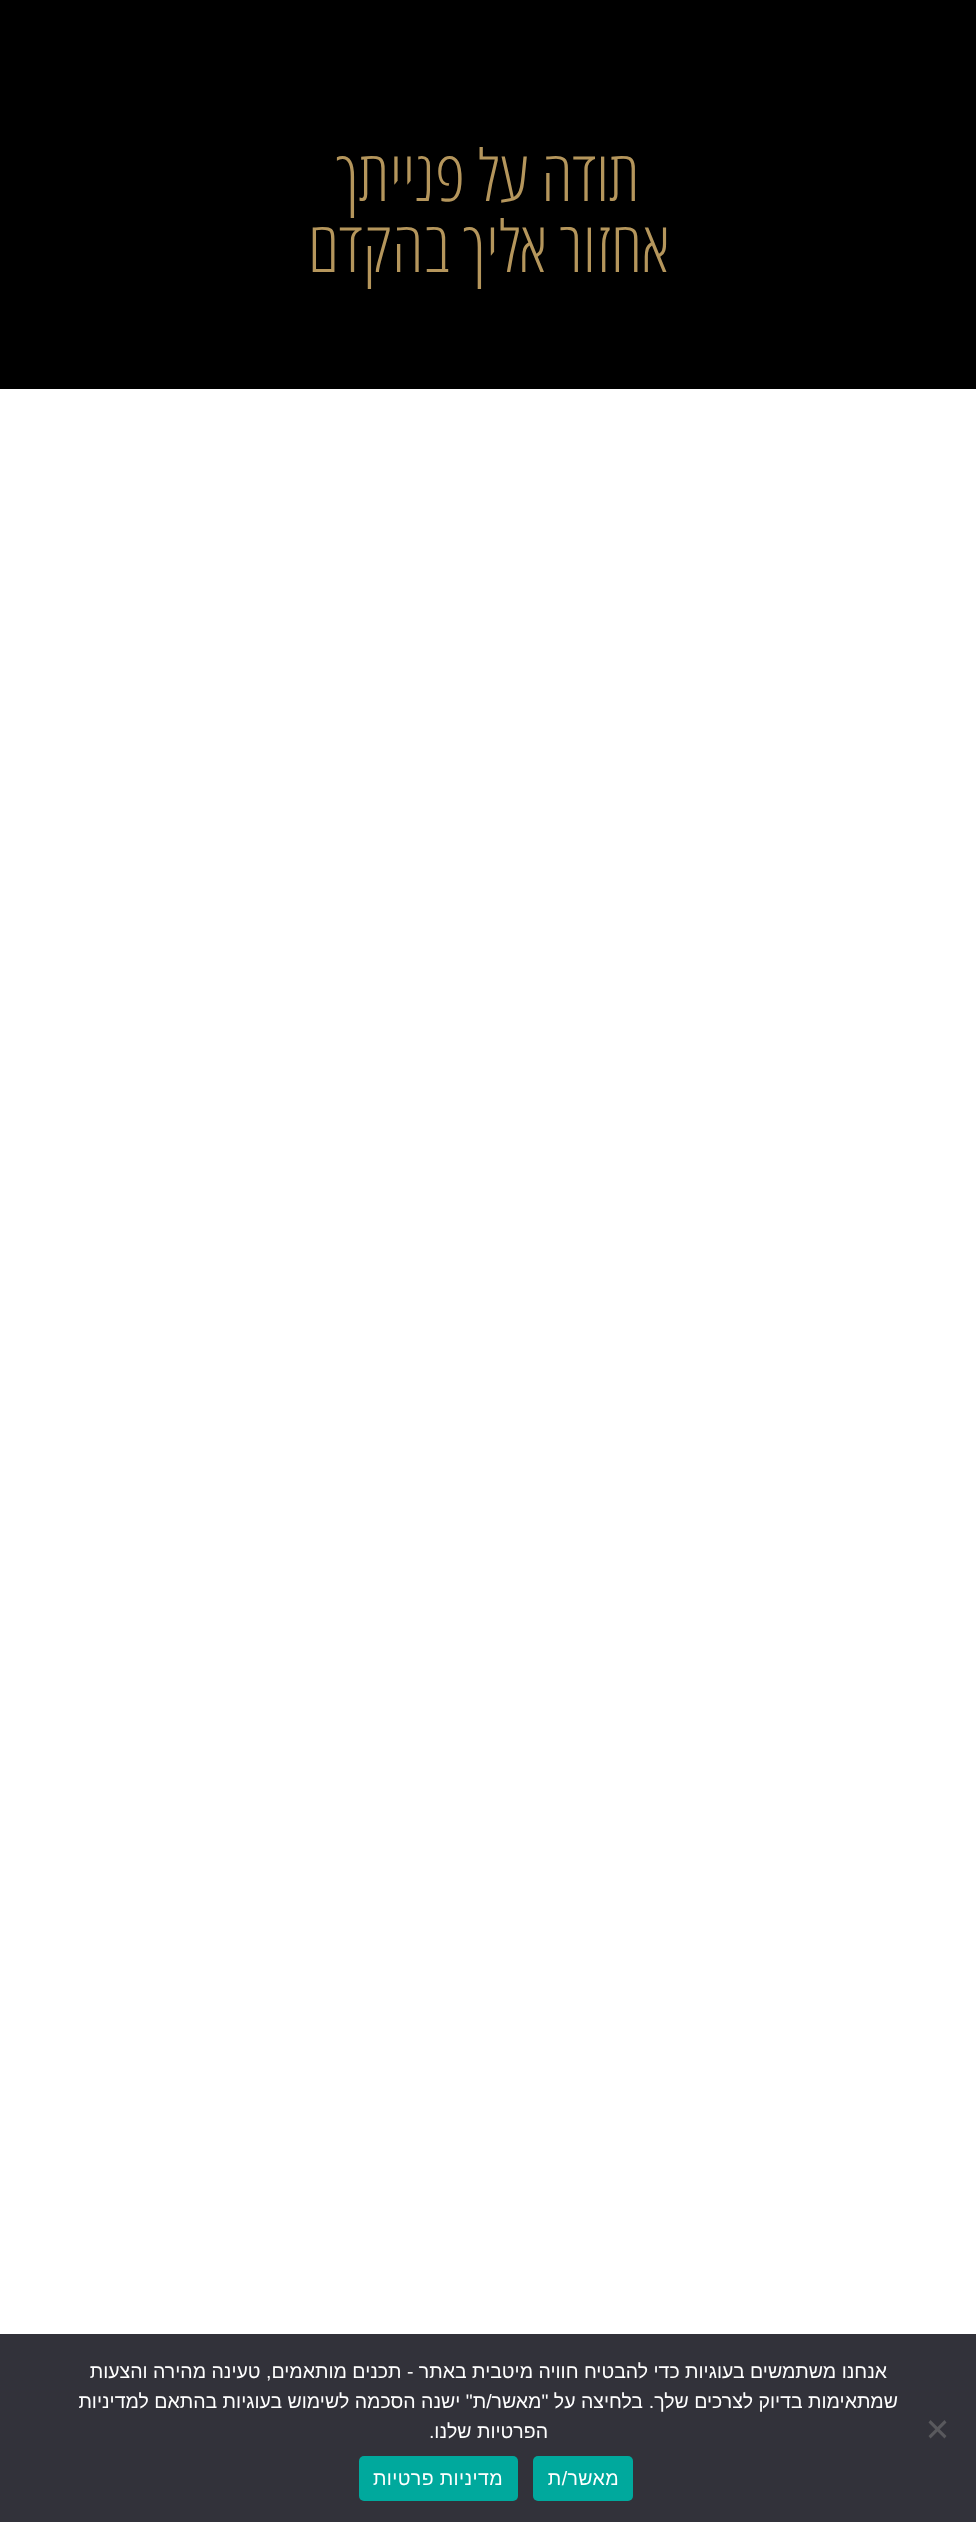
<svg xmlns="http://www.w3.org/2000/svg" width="976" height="2522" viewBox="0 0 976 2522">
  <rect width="100%" height="100%" fill="#ffffff"/>
  <rect x="0" y="0" width="976" height="389" fill="#000000"/>
  <text x="640" y="201" font-family="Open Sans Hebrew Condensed" font-size="70.5" font-weight="300" direction="rtl" fill="#b5965c">תודה על פנייתך</text>
  <text x="669" y="272" font-family="Open Sans Hebrew Condensed" font-size="70.5" font-weight="300" direction="rtl" fill="#b5965c">אחזור אליך בהקדם</text>
  <rect x="0" y="2334" width="976" height="188" fill="#32323a"/>
  <path d="M944.5 2420L946.5 2422.5L930.5 2438.5L928.5 2436Z" fill="#59595d"/>
  <path d="M928.5 2422.5L930.5 2420L946.5 2436L944.5 2438.5Z" fill="#59595d"/>
  <text x="887" y="2378" font-family="Liberation Sans" font-size="19.5" direction="rtl" fill="#ffffff">אנחנו משתמשים בעוגיות כדי להבטיח חוויה מיטבית באתר - תכנים מותאמים, טעינה מהירה והצעות</text>
  <text x="898" y="2408" font-family="Liberation Sans" font-size="19.5" direction="rtl" fill="#ffffff">שמתאימות בדיוק לצרכים שלך.</text>
  <text x="643" y="2408" font-family="Liberation Sans" font-size="19.5" direction="rtl" fill="#ffffff">בלחיצה על "מאשר/ת" ישנה הסכמה לשימוש בעוגיות בהתאם למדיניות</text>
  <text x="548" y="2438" font-family="Liberation Sans" font-size="19.5" direction="rtl" fill="#ffffff">הפרטיות שלנו.</text>
  <rect x="533" y="2456" width="100" height="45" rx="5" fill="#00a99d"/>
  <text x="619" y="2485" font-family="Liberation Sans" font-size="19.5" letter-spacing="0.4" direction="rtl" fill="#ffffff">מאשר/ת</text>
  <rect x="359" y="2456" width="159" height="45" rx="5" fill="#00a99d"/>
  <text x="503" y="2485" font-family="Liberation Sans" font-size="19.5" letter-spacing="0.4" direction="rtl" fill="#ffffff">מדיניות פרטיות</text>
</svg>
